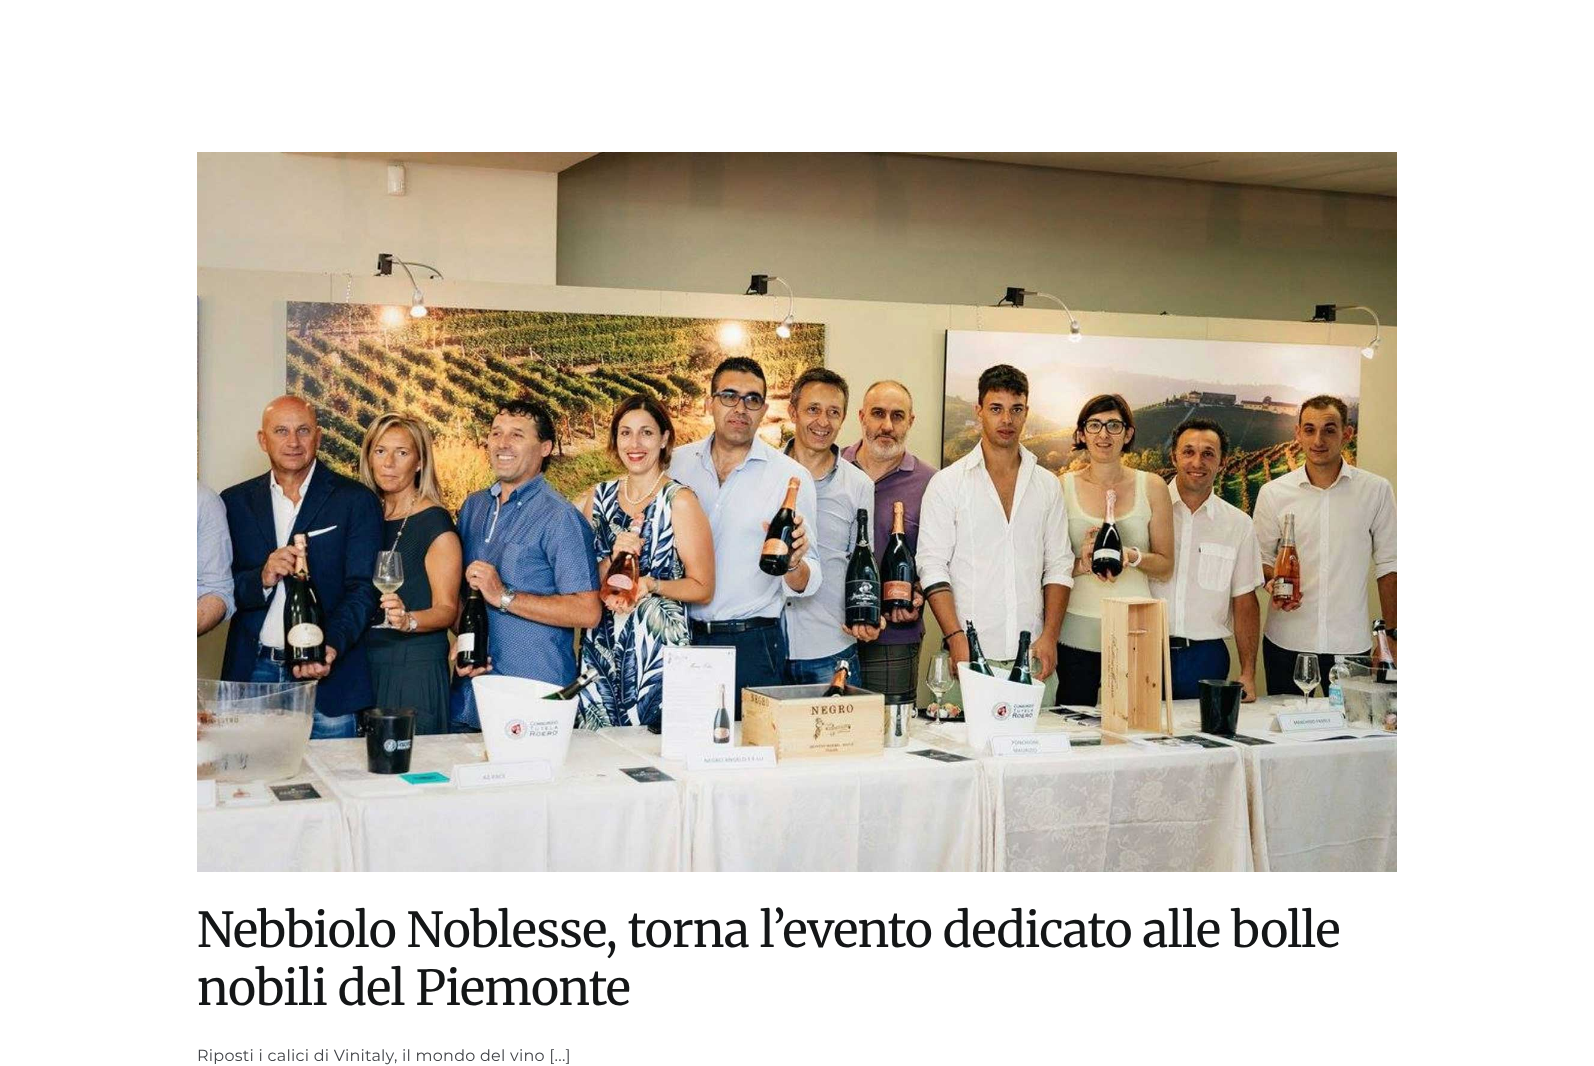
<svg xmlns="http://www.w3.org/2000/svg" width="1594" height="1066" viewBox="0 0 1594 1066">
  <rect width="100%" height="100%" fill="#ffffff"/>
  <image x="197" y="152" width="1200" height="720" href="img1.png"/>
  <text x="197" y="947" font-family="Merriweather" font-size="48" font-weight="300" letter-spacing="-0.72" fill="#141617">Nebbiolo Noblesse, torna l’evento dedicato alle bolle</text>
  <text x="197" y="1005" font-family="Merriweather" font-size="48" font-weight="300" letter-spacing="-0.72" fill="#141617">nobili del Piemonte</text>
  <text x="197" y="1061" font-family="Montserrat" font-size="16" letter-spacing="0.25" fill="#434549">Riposti i calici di Vinitaly, il mondo del vino [...]</text>
</svg>
